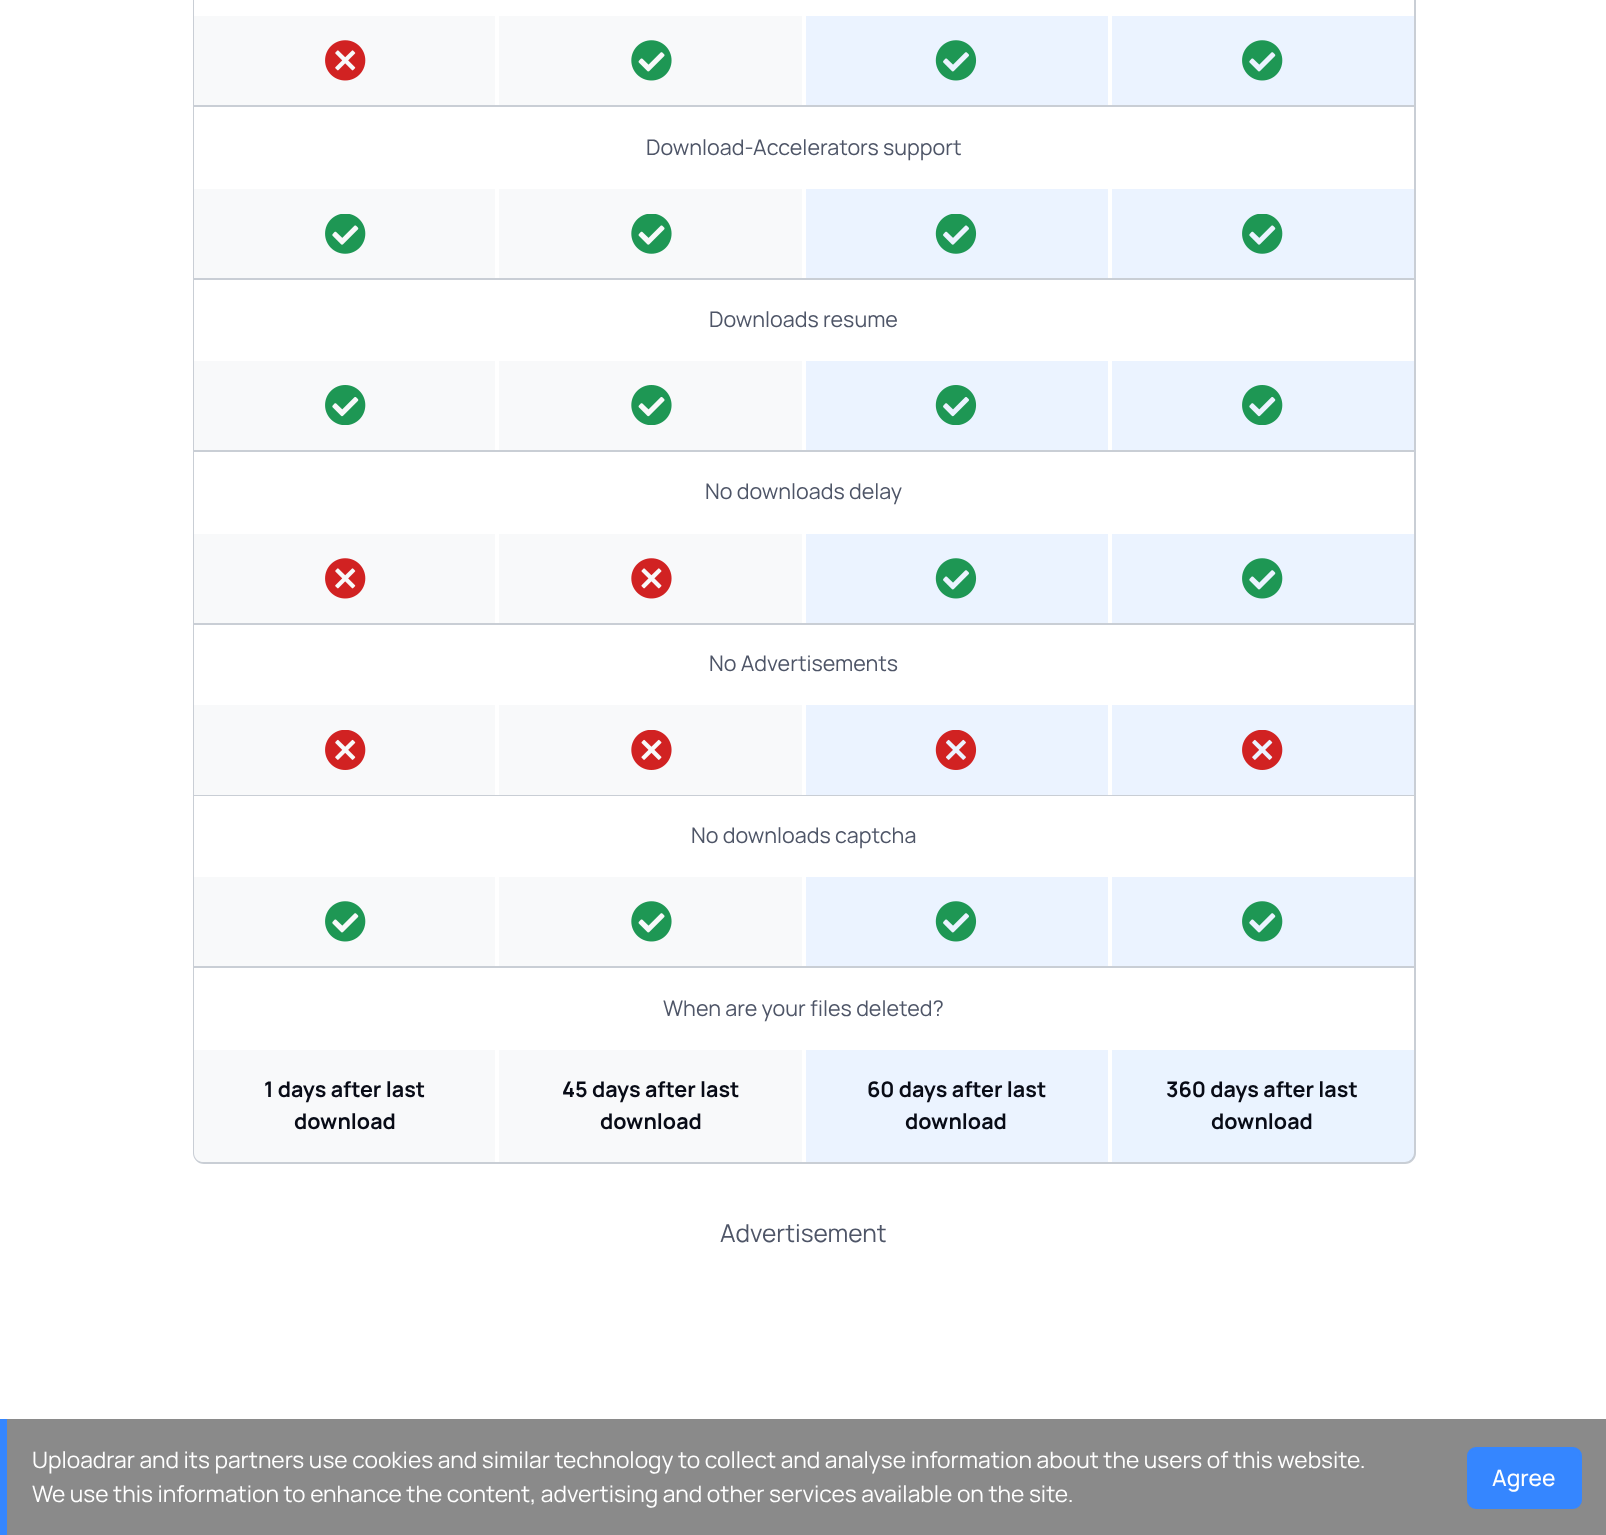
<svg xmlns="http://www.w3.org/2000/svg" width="1606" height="1535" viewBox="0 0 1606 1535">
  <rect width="100%" height="100%" fill="#ffffff"/>
  <rect x="194" y="-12" width="1221" height="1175" rx="10" fill="none" stroke="#c9ced5" stroke-width="2"/>
  <rect x="194" y="105" width="1220" height="2" fill="#c9ced5"/>
  <rect x="194" y="0" width="1" height="16" fill="#ffffff"/>
  <rect x="194" y="16" width="301" height="89" fill="#f8f9fa"/>
  <image x="325" y="40" width="41" height="41" href="img1.png"/>
  <rect x="499" y="16" width="303" height="89" fill="#f8f9fa"/>
  <image x="631" y="40" width="41" height="41" href="img2.png"/>
  <rect x="806" y="16" width="302" height="89" fill="#ebf3ff"/>
  <image x="935" y="40" width="42" height="41" href="img3.png"/>
  <rect x="1112" y="16" width="302" height="89" fill="#ebf3ff"/>
  <image x="1242" y="40" width="41" height="41" href="img4.png"/>
  <rect x="194" y="278" width="1220" height="2" fill="#c9ced5"/>
  <rect x="194" y="107" width="1" height="82" fill="#ffffff"/>
  <text x="646" y="155" font-family="Manrope" font-size="21.5" fill="#4e5567">Download-Accelerators support</text>
  <rect x="194" y="189" width="301" height="89" fill="#f8f9fa"/>
  <image x="325" y="214" width="41" height="40" href="img5.png"/>
  <rect x="499" y="189" width="303" height="89" fill="#f8f9fa"/>
  <image x="631" y="214" width="41" height="40" href="img6.png"/>
  <rect x="806" y="189" width="302" height="89" fill="#ebf3ff"/>
  <image x="935" y="214" width="42" height="40" href="img7.png"/>
  <rect x="1112" y="189" width="302" height="89" fill="#ebf3ff"/>
  <image x="1242" y="214" width="41" height="40" href="img8.png"/>
  <rect x="194" y="450" width="1220" height="2" fill="#c9ced5"/>
  <rect x="194" y="280" width="1" height="81" fill="#ffffff"/>
  <text x="709" y="327" font-family="Manrope" font-size="21.5" fill="#4e5567">Downloads resume</text>
  <rect x="194" y="361" width="301" height="89" fill="#f8f9fa"/>
  <image x="325" y="385" width="41" height="40" href="img9.png"/>
  <rect x="499" y="361" width="303" height="89" fill="#f8f9fa"/>
  <image x="631" y="385" width="41" height="40" href="img10.png"/>
  <rect x="806" y="361" width="302" height="89" fill="#ebf3ff"/>
  <image x="935" y="385" width="42" height="40" href="img11.png"/>
  <rect x="1112" y="361" width="302" height="89" fill="#ebf3ff"/>
  <image x="1242" y="385" width="41" height="40" href="img12.png"/>
  <rect x="194" y="623" width="1220" height="2" fill="#c9ced5"/>
  <rect x="194" y="452" width="1" height="82" fill="#ffffff"/>
  <text x="705" y="499" font-family="Manrope" font-size="21.5" fill="#4e5567">No downloads delay</text>
  <rect x="194" y="534" width="301" height="89" fill="#f8f9fa"/>
  <image x="325" y="558" width="41" height="41" href="img1.png"/>
  <rect x="499" y="534" width="303" height="89" fill="#f8f9fa"/>
  <image x="631" y="558" width="41" height="41" href="img13.png"/>
  <rect x="806" y="534" width="302" height="89" fill="#ebf3ff"/>
  <image x="935" y="558" width="42" height="41" href="img3.png"/>
  <rect x="1112" y="534" width="302" height="89" fill="#ebf3ff"/>
  <image x="1242" y="558" width="41" height="41" href="img4.png"/>
  <rect x="194" y="795" width="1220" height="1" fill="#c9ced5"/>
  <rect x="194" y="625" width="1" height="80" fill="#ffffff"/>
  <text x="709" y="671" font-family="Manrope" font-size="21.5" fill="#4e5567">No Advertisements</text>
  <rect x="194" y="705" width="301" height="90" fill="#f8f9fa"/>
  <image x="325" y="730" width="41" height="40" href="img14.png"/>
  <rect x="499" y="705" width="303" height="90" fill="#f8f9fa"/>
  <image x="631" y="730" width="41" height="40" href="img15.png"/>
  <rect x="806" y="705" width="302" height="90" fill="#ebf3ff"/>
  <image x="935" y="730" width="42" height="40" href="img16.png"/>
  <rect x="1112" y="705" width="302" height="90" fill="#ebf3ff"/>
  <image x="1242" y="730" width="41" height="40" href="img17.png"/>
  <rect x="194" y="966" width="1220" height="2" fill="#c9ced5"/>
  <rect x="194" y="796" width="1" height="81" fill="#ffffff"/>
  <text x="691" y="843" font-family="Manrope" font-size="21.5" fill="#4e5567">No downloads captcha</text>
  <rect x="194" y="877" width="301" height="89" fill="#f8f9fa"/>
  <image x="325" y="901" width="41" height="41" href="img18.png"/>
  <rect x="499" y="877" width="303" height="89" fill="#f8f9fa"/>
  <image x="631" y="901" width="41" height="41" href="img2.png"/>
  <rect x="806" y="877" width="302" height="89" fill="#ebf3ff"/>
  <image x="935" y="901" width="42" height="41" href="img3.png"/>
  <rect x="1112" y="877" width="302" height="89" fill="#ebf3ff"/>
  <image x="1242" y="901" width="41" height="41" href="img4.png"/>
  <rect x="194" y="968" width="1" height="82" fill="#ffffff"/>
  <text x="663" y="1016" font-family="Manrope" font-size="21.5" fill="#4e5567">When are your files deleted?</text>
  <path d="M194 1050H495V1162H203C198 1162 194 1158 194 1153Z" fill="#f8f9fa"/>
  <text x="264" y="1097" font-family="Manrope" font-size="21.5" font-weight="bold" fill="#080b16">1 days after last</text>
  <text x="294" y="1129" font-family="Manrope" font-size="21.5" font-weight="bold" fill="#080b16">download</text>
  <rect x="499" y="1050" width="303" height="112" fill="#f8f9fa"/>
  <text x="562" y="1097" font-family="Manrope" font-size="21.5" font-weight="bold" fill="#080b16">45 days after last</text>
  <text x="600" y="1129" font-family="Manrope" font-size="21.5" font-weight="bold" fill="#080b16">download</text>
  <rect x="806" y="1050" width="302" height="112" fill="#ebf3ff"/>
  <text x="867" y="1097" font-family="Manrope" font-size="21.5" font-weight="bold" fill="#080b16">60 days after last</text>
  <text x="905" y="1129" font-family="Manrope" font-size="21.5" font-weight="bold" fill="#080b16">download</text>
  <path d="M1108 1050H1414V1153C1414 1158 1410 1162 1405 1162H1108Z" fill="#3586ff" fill-opacity="0.1"/>
  <rect x="1108" y="1050" width="4" height="112" fill="#ffffff"/>
  <text x="1166" y="1097" font-family="Manrope" font-size="21.5" font-weight="bold" fill="#080b16">360 days after last</text>
  <text x="1211" y="1129" font-family="Manrope" font-size="21.5" font-weight="bold" fill="#080b16">download</text>
  <text x="720" y="1242" font-family="Manrope" font-size="24.5" fill="#4e5567">Advertisement</text>
  <rect x="7" y="1419" width="1599" height="116" fill="#8a8a8a"/>
  <rect x="0" y="1419" width="7" height="116" fill="#3586ff"/>
  <text x="32" y="1468" font-family="Manrope" font-size="22.75" fill="#ffffff">Uploadrar and its partners use cookies and similar technology to collect and analyse information about the users of this website.</text>
  <text x="32" y="1502" font-family="Manrope" font-size="22.75" fill="#ffffff">We use this information to enhance the content, advertising and other services available on the site.</text>
  <rect x="1468" y="1448" width="113" height="60" rx="8" fill="#3586ff" stroke="#3586ff" stroke-width="2"/>
  <text x="1492" y="1486" font-family="Manrope" font-size="22.75" font-weight="500" fill="#ffffff">Agree</text>
</svg>
